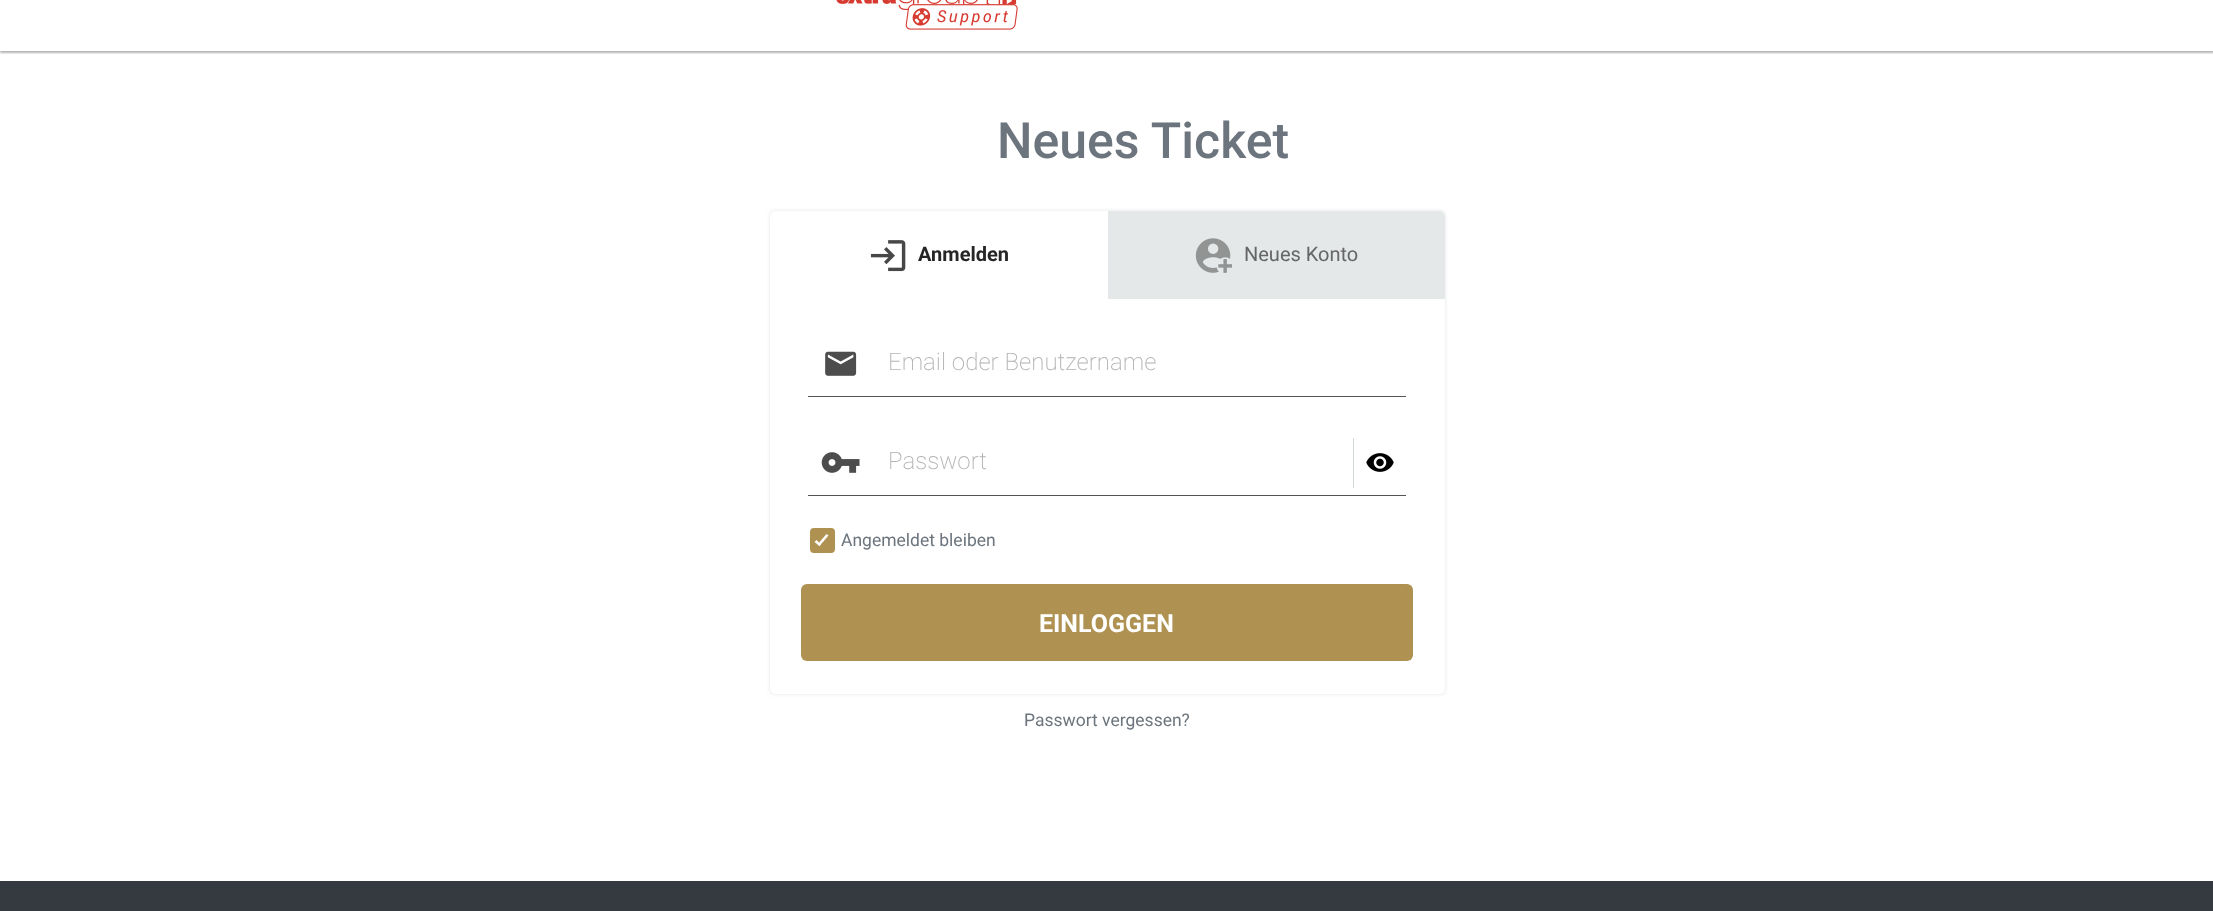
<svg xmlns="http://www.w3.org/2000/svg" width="2213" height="911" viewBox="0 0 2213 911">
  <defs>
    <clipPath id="clip1"><rect x="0" y="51" width="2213" height="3"/></clipPath>
    <filter id="blur1" x="-50%" y="-200%" width="200%" height="500%"><feGaussianBlur stdDeviation="1"/></filter>
    <filter id="blur2" x="-50%" y="-200%" width="200%" height="500%"><feGaussianBlur stdDeviation="2"/></filter>
  </defs>
  <rect width="100%" height="100%" fill="#ffffff"/>
  <g clip-path="url(#clip1)">
    <rect x="0" y="-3" width="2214" height="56" fill="#000000" fill-opacity="0.3" filter="url(#blur1)"/>
  </g>
  <image x="836" y="0" width="182" height="30" href="img1.png"/>
  <text x="997" y="158" font-family="Roboto" font-size="50" font-weight="500" fill="#6c757d">Neues Ticket</text>
  <rect x="770" y="211" width="675" height="483" rx="5" fill="#000000" fill-opacity="0.1" filter="url(#blur2)"/>
  <rect x="770" y="211" width="675" height="483" rx="6" fill="#ffffff"/>
  <image x="870" y="240" width="36" height="32" href="img2.png"/>
  <text x="918" y="261" font-family="Roboto" font-size="20" font-weight="bold" fill="#262626">Anmelden</text>
  <path d="M1108 211H1439C1442.5 211 1445 213.5 1445 217V299H1108Z" fill="#e4e8e8"/>
  <image x="1195" y="238" width="37" height="35" href="img3.png"/>
  <text x="1244" y="261" font-family="Roboto" font-size="20" fill="#666666">Neues Konto</text>
  <image x="825" y="351" width="32" height="25" href="img4.png"/>
  <rect x="808" y="396" width="598" height="1" fill="#535353"/>
  <text x="888" y="370" font-family="Roboto" font-size="24" font-weight="200" fill="#b3b3b3">Email oder Benutzername</text>
  <image x="821" y="452" width="39" height="21" href="img5.png"/>
  <rect x="808" y="495" width="598" height="1" fill="#535353"/>
  <text x="888" y="469" font-family="Roboto" font-size="24" font-weight="200" fill="#b3b3b3">Passwort</text>
  <image x="1366" y="453" width="28" height="19" href="img6.png"/>
  <rect x="1353" y="438" width="1" height="50" fill="#d2d8d8"/>
  <rect x="811.5" y="529.5" width="22" height="22" rx="2.5" fill="#af9252" stroke="#af9252" stroke-width="3"/>
  <path d="M826.5 534L828.5 535.5L819.5 546L817.5 544.5Z" fill="#ffffff"/>
  <path d="M816.5 540L821 544.5L819.5 546L814.5 542Z" fill="#ffffff"/>
  <text x="841" y="546" font-family="Roboto" font-size="17.5" fill="#6c757d">Angemeldet bleiben</text>
  <rect x="801" y="584" width="612" height="77" rx="6" fill="#af9252"/>
  <text x="1039" y="632" font-family="Roboto" font-size="25" font-weight="bold" fill="#ffffff">EINLOGGEN</text>
  <text x="1024" y="726" font-family="Roboto" font-size="17.5" fill="#6c757d">Passwort vergessen?</text>
  <rect x="0" y="881" width="2213" height="30" fill="#343a40"/>
</svg>
